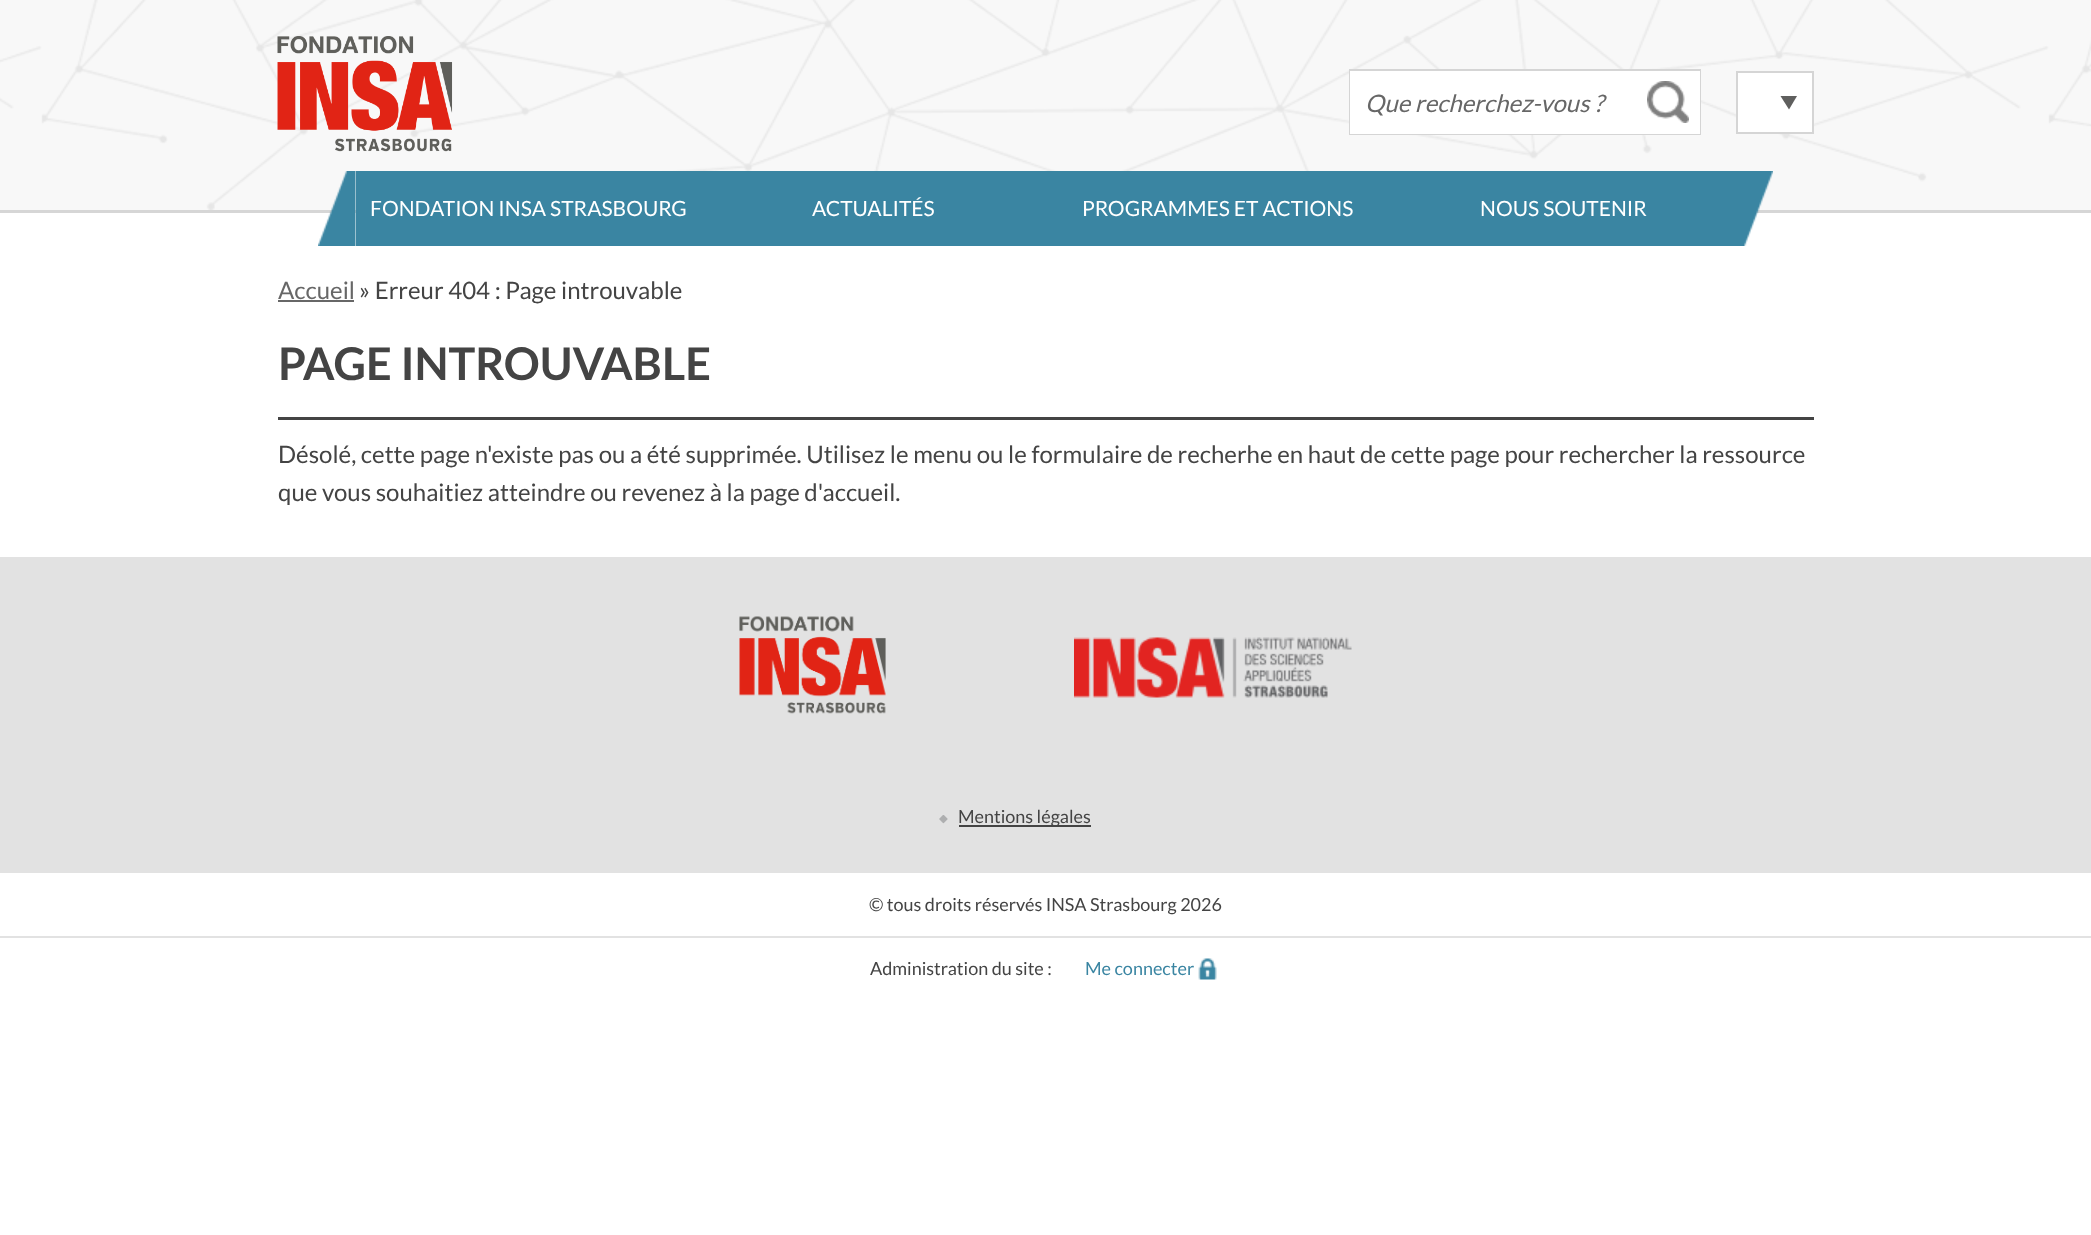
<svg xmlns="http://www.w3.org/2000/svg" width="2091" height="1235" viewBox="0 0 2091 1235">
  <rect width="100%" height="100%" fill="#ffffff"/>
  <rect x="0" y="210" width="2091" height="3" fill="#d6d6d6"/>
  <rect x="0" y="0" width="2091" height="210" fill="#f8f8f8"/>
  <image x="0" y="0" width="2091" height="210" href="img1.png"/>
  <image x="277" y="36" width="176" height="116" href="img2.png"/>
  <rect x="1350" y="70" width="350" height="64" fill="none" stroke="#d5d5d5" stroke-width="2"/>
  <rect x="1350" y="71" width="350" height="63" fill="#ffffff"/>
  <text x="1365" y="112" font-family="Lato" font-size="24" font-style="italic" fill="#676767">Que recherchez-vous ?</text>
  <image x="1647" y="81" width="42" height="42" href="img3.png"/>
  <rect x="1738" y="73" width="74" height="59" fill="#ffffff"/>
  <path d="M1780.5 96L1789 109.5L1797 96Z" fill="#5f5f5e"/>
  <rect x="1737" y="72" width="76" height="61" fill="none" stroke="#d5d5d5" stroke-width="2"/>
  <image x="318" y="171" width="38" height="75" href="img4.png"/>
  <rect x="356" y="171" width="1380" height="75" fill="#3a85a2"/>
  <text x="370" y="216" font-family="Lato" font-size="21" fill="#ffffff">FONDATION INSA STRASBOURG</text>
  <text x="812" y="216" font-family="Lato" font-size="21" fill="#ffffff">ACTUALITÉS</text>
  <text x="1082" y="216" font-family="Lato" font-size="21" fill="#ffffff">PROGRAMMES ET ACTIONS</text>
  <text x="1480" y="216" font-family="Lato" font-size="21" fill="#ffffff">NOUS SOUTENIR</text>
  <image x="1736" y="171" width="37" height="75" href="img5.png"/>
  <text x="278" y="299" font-family="Lato" font-size="24" fill="#676767">Accueil</text>
  <rect x="278" y="300" width="76" height="2" fill="#676767"/>
  <text x="359" y="299" font-family="Lato" font-size="24" fill="#444444">» Erreur 404 : Page introuvable</text>
  <rect x="278" y="417" width="1536" height="3" fill="#444444"/>
  <text x="278" y="380" font-family="Lato" font-size="45" font-weight="bold" fill="#444444">PAGE INTROUVABLE</text>
  <text x="278" y="463" font-family="Lato" font-size="24" fill="#444444">Désolé, cette page n'existe pas ou a été supprimée. Utilisez le menu ou le formulaire de recherhe en haut de cette page pour rechercher la ressource</text>
  <text x="278" y="501" font-family="Lato" font-size="24" fill="#444444">que vous souhaitiez atteindre ou revenez à la page d'accueil.</text>
  <rect x="0" y="557" width="2091" height="316" fill="#e2e2e2"/>
  <image x="739" y="616" width="147" height="98" href="img6.png"/>
  <image x="1074" y="637" width="278" height="61" href="img7.png"/>
  <image x="939" y="815" width="9" height="9" href="img8.png"/>
  <rect x="959" y="825" width="132" height="2" fill="#444444"/>
  <text x="958" y="823" font-family="Lato" font-size="18" fill="#444444">Mentions légales</text>
  <rect x="0" y="936" width="2091" height="2" fill="#e2e2e2"/>
  <text x="869" y="911" font-family="Lato" font-size="18" fill="#444444">© tous droits réservés INSA Strasbourg 2026</text>
  <text x="870" y="975" font-family="Lato" font-size="18" fill="#444444">Administration du site :</text>
  <image x="1198" y="958" width="19" height="22" href="img9.png"/>
  <text x="1085" y="975" font-family="Lato" font-size="18" fill="#3a85a2">Me connecter</text>
</svg>
